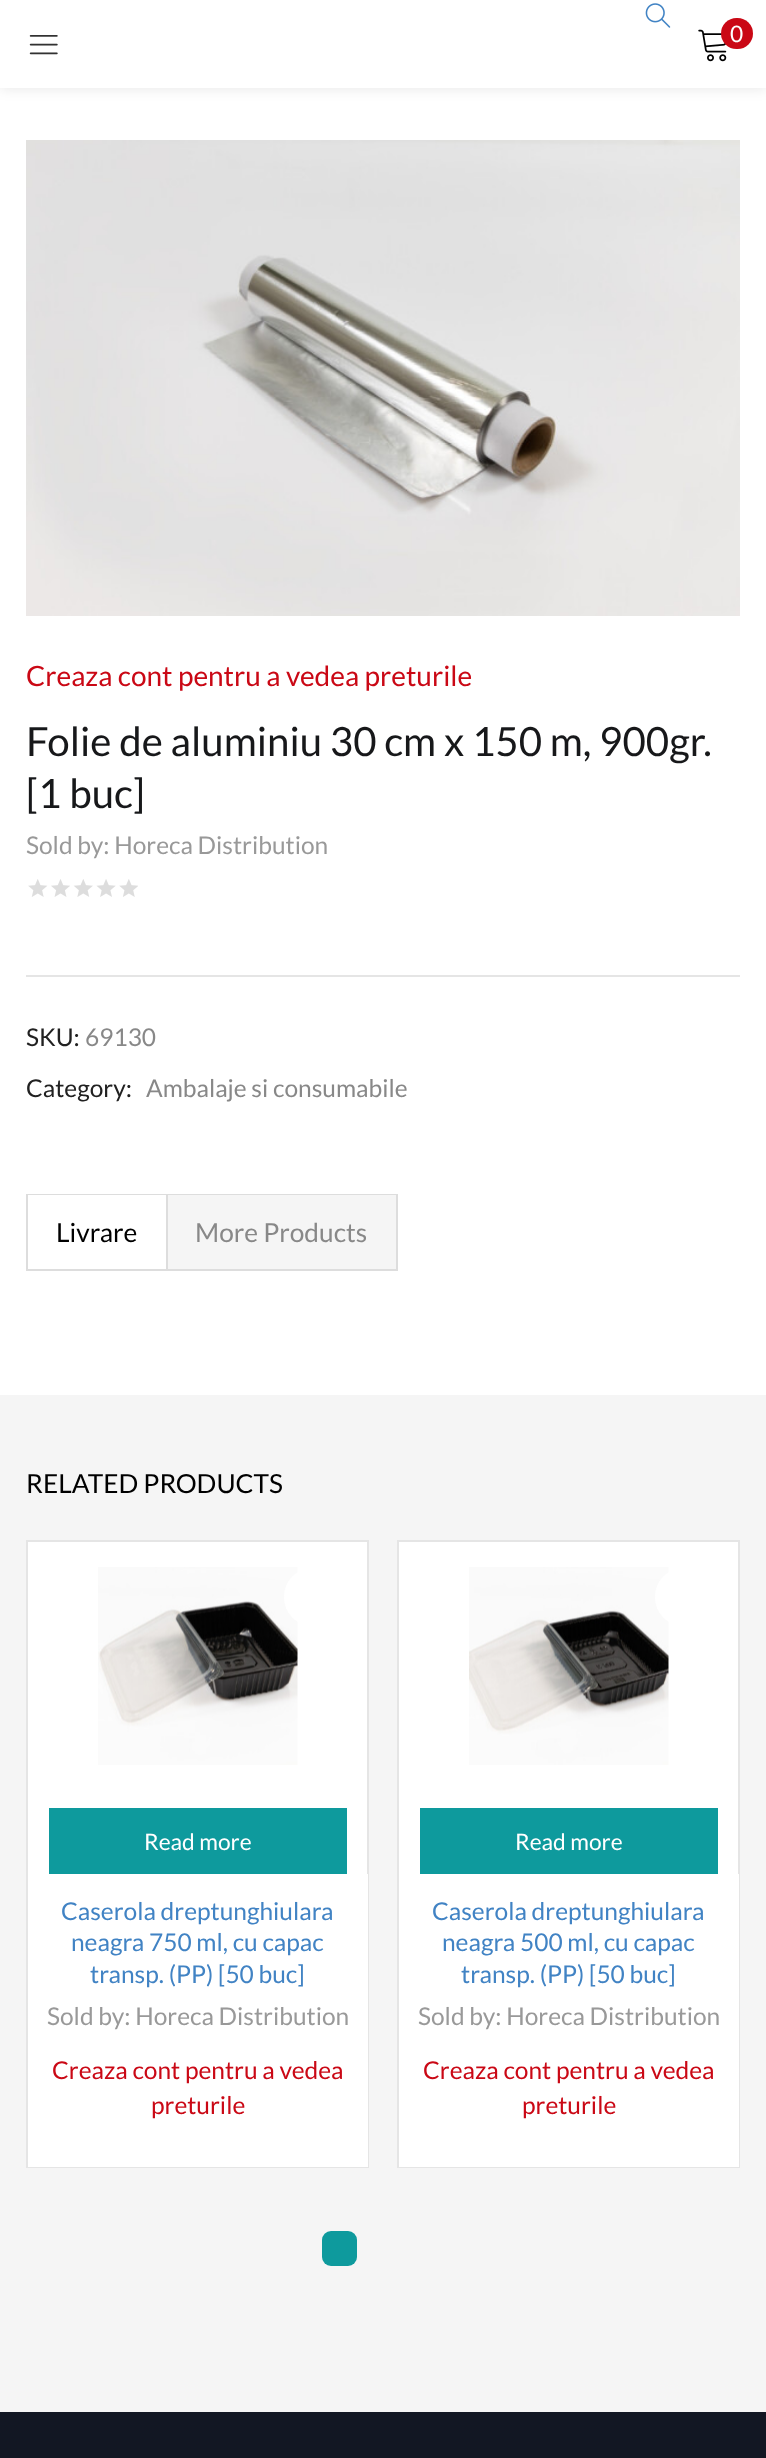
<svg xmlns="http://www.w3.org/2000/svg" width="766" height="2458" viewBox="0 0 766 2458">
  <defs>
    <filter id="blur1" x="-50%" y="-200%" width="200%" height="500%"><feGaussianBlur stdDeviation="7"/></filter>
  </defs>
  <rect width="100%" height="100%" fill="#ffffff"/>
  <rect x="0" y="0" width="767" height="88" fill="#000000" fill-opacity="0.1" filter="url(#blur1)"/>
  <rect x="0" y="0" width="766" height="88" fill="#ffffff"/>
  <image x="29" y="35" width="29" height="20" href="img1.png"/>
  <image x="645" y="3" width="26" height="25" href="img2.png"/>
  <image x="698" y="29" width="29" height="33" href="img3.png"/>
  <rect x="721" y="18" width="32" height="31" rx="15.5" fill="#ca0815"/>
  <text x="730" y="42" font-family="Lato" font-size="22.75" fill="#ffffff">0</text>
  <image x="26" y="140" width="714" height="476" href="img4.png"/>
  <text x="26" y="686" font-family="Lato" font-size="28" fill="#ca0815">Creaza cont pentru a vedea preturile</text>
  <text x="26" y="756" font-family="Lato" font-size="40.25" fill="#17181a">Folie de aluminiu 30 cm x 150 m, 900gr.</text>
  <text x="26" y="808" font-family="Lato" font-size="40.25" fill="#17181a">[1 buc]</text>
  <text x="26" y="854" font-family="Lato" font-size="24.5" fill="#999999">Sold by: Horeca Distribution</text>
  <image x="28" y="879" width="110" height="18" href="img5.png"/>
  <rect x="26" y="975" width="714" height="2" fill="#e5e5e5"/>
  <text x="26" y="1046" font-family="Lato" font-size="24.5" fill="#212121">SKU:</text>
  <text x="85" y="1046" font-family="Lato" font-size="24.5" fill="#888888">69130</text>
  <text x="26" y="1097" font-family="Lato" font-size="24.5" fill="#212121">Category:</text>
  <text x="146" y="1097" font-family="Lato" font-size="24.5" fill="#888888">Ambalaje si consumabile</text>
  <rect x="27" y="1195" width="140" height="75" fill="none" stroke="#dddddd" stroke-width="2"/>
  <rect x="28" y="1195" width="138" height="1" fill="#ffffff"/>
  <text x="56" y="1242" font-family="Lato" font-size="26.25" fill="#000000">Livrare</text>
  <rect x="168" y="1194" width="229" height="1" fill="#dddddd"/>
  <rect x="396" y="1194" width="2" height="77" fill="#dddddd"/>
  <rect x="168" y="1269" width="229" height="2" fill="#dddddd"/>
  <rect x="168" y="1195" width="228" height="74" fill="#f5f5f5"/>
  <text x="195" y="1242" font-family="Lato" font-size="26.25" fill="#888888">More Products</text>
  <rect x="0" y="1395" width="740" height="1017" fill="#f5f5f5"/>
  <rect x="740" y="1395" width="26" height="1017" fill="#f5f5f5"/>
  <text x="26" y="1493" font-family="Lato" font-size="26.25" fill="#000000">RELATED PRODUCTS</text>
  <rect x="28" y="1542" width="339" height="332" fill="#ffffff"/>
  <rect x="27" y="1541" width="341" height="626" fill="none" stroke="#e5e5e5" stroke-width="2"/>
  <image x="98" y="1567" width="200" height="198" href="img6.png"/>
  <rect x="284" y="1568" width="57" height="58" rx="28.5" fill="#ffffff"/>
  <rect x="49" y="1808" width="298" height="66" fill="#0e9a9d"/>
  <text x="144" y="1850" font-family="Lato" font-size="22.75" fill="#ffffff">Read more</text>
  <rect x="28" y="1874" width="340" height="293" fill="#ffffff"/>
  <text x="61" y="1920" font-family="Lato" font-size="24.5" fill="#4183c4">Caserola dreptunghiulara</text>
  <text x="71" y="1951" font-family="Lato" font-size="24.5" fill="#4183c4">neagra 750 ml, cu capac</text>
  <text x="90" y="1983" font-family="Lato" font-size="24.5" fill="#4183c4">transp. (PP) [50 buc]</text>
  <text x="47" y="2025" font-family="Lato" font-size="24.5" fill="#999999">Sold by: Horeca Distribution</text>
  <text x="52" y="2079" font-family="Lato" font-size="24.5" fill="#ca0815">Creaza cont pentru a vedea</text>
  <text x="151" y="2114" font-family="Lato" font-size="24.5" fill="#ca0815">preturile</text>
  <rect x="399" y="1542" width="339" height="332" fill="#ffffff"/>
  <rect x="398" y="1541" width="341" height="626" fill="none" stroke="#e5e5e5" stroke-width="2"/>
  <image x="469" y="1567" width="200" height="198" href="img7.png"/>
  <rect x="655" y="1568" width="57" height="58" rx="28.5" fill="#ffffff"/>
  <rect x="420" y="1808" width="298" height="66" fill="#0e9a9d"/>
  <text x="515" y="1850" font-family="Lato" font-size="22.75" fill="#ffffff">Read more</text>
  <rect x="399" y="1874" width="340" height="293" fill="#ffffff"/>
  <text x="432" y="1920" font-family="Lato" font-size="24.5" fill="#4183c4">Caserola dreptunghiulara</text>
  <text x="442" y="1951" font-family="Lato" font-size="24.5" fill="#4183c4">neagra 500 ml, cu capac</text>
  <text x="461" y="1983" font-family="Lato" font-size="24.5" fill="#4183c4">transp. (PP) [50 buc]</text>
  <text x="418" y="2025" font-family="Lato" font-size="24.5" fill="#999999">Sold by: Horeca Distribution</text>
  <text x="423" y="2079" font-family="Lato" font-size="24.5" fill="#ca0815">Creaza cont pentru a vedea</text>
  <text x="522" y="2114" font-family="Lato" font-size="24.5" fill="#ca0815">preturile</text>
  <rect x="322" y="2231" width="35" height="35" rx="9" fill="#0e9a9d"/>
  <rect x="0" y="2412" width="766" height="46" fill="#121723"/>
</svg>
